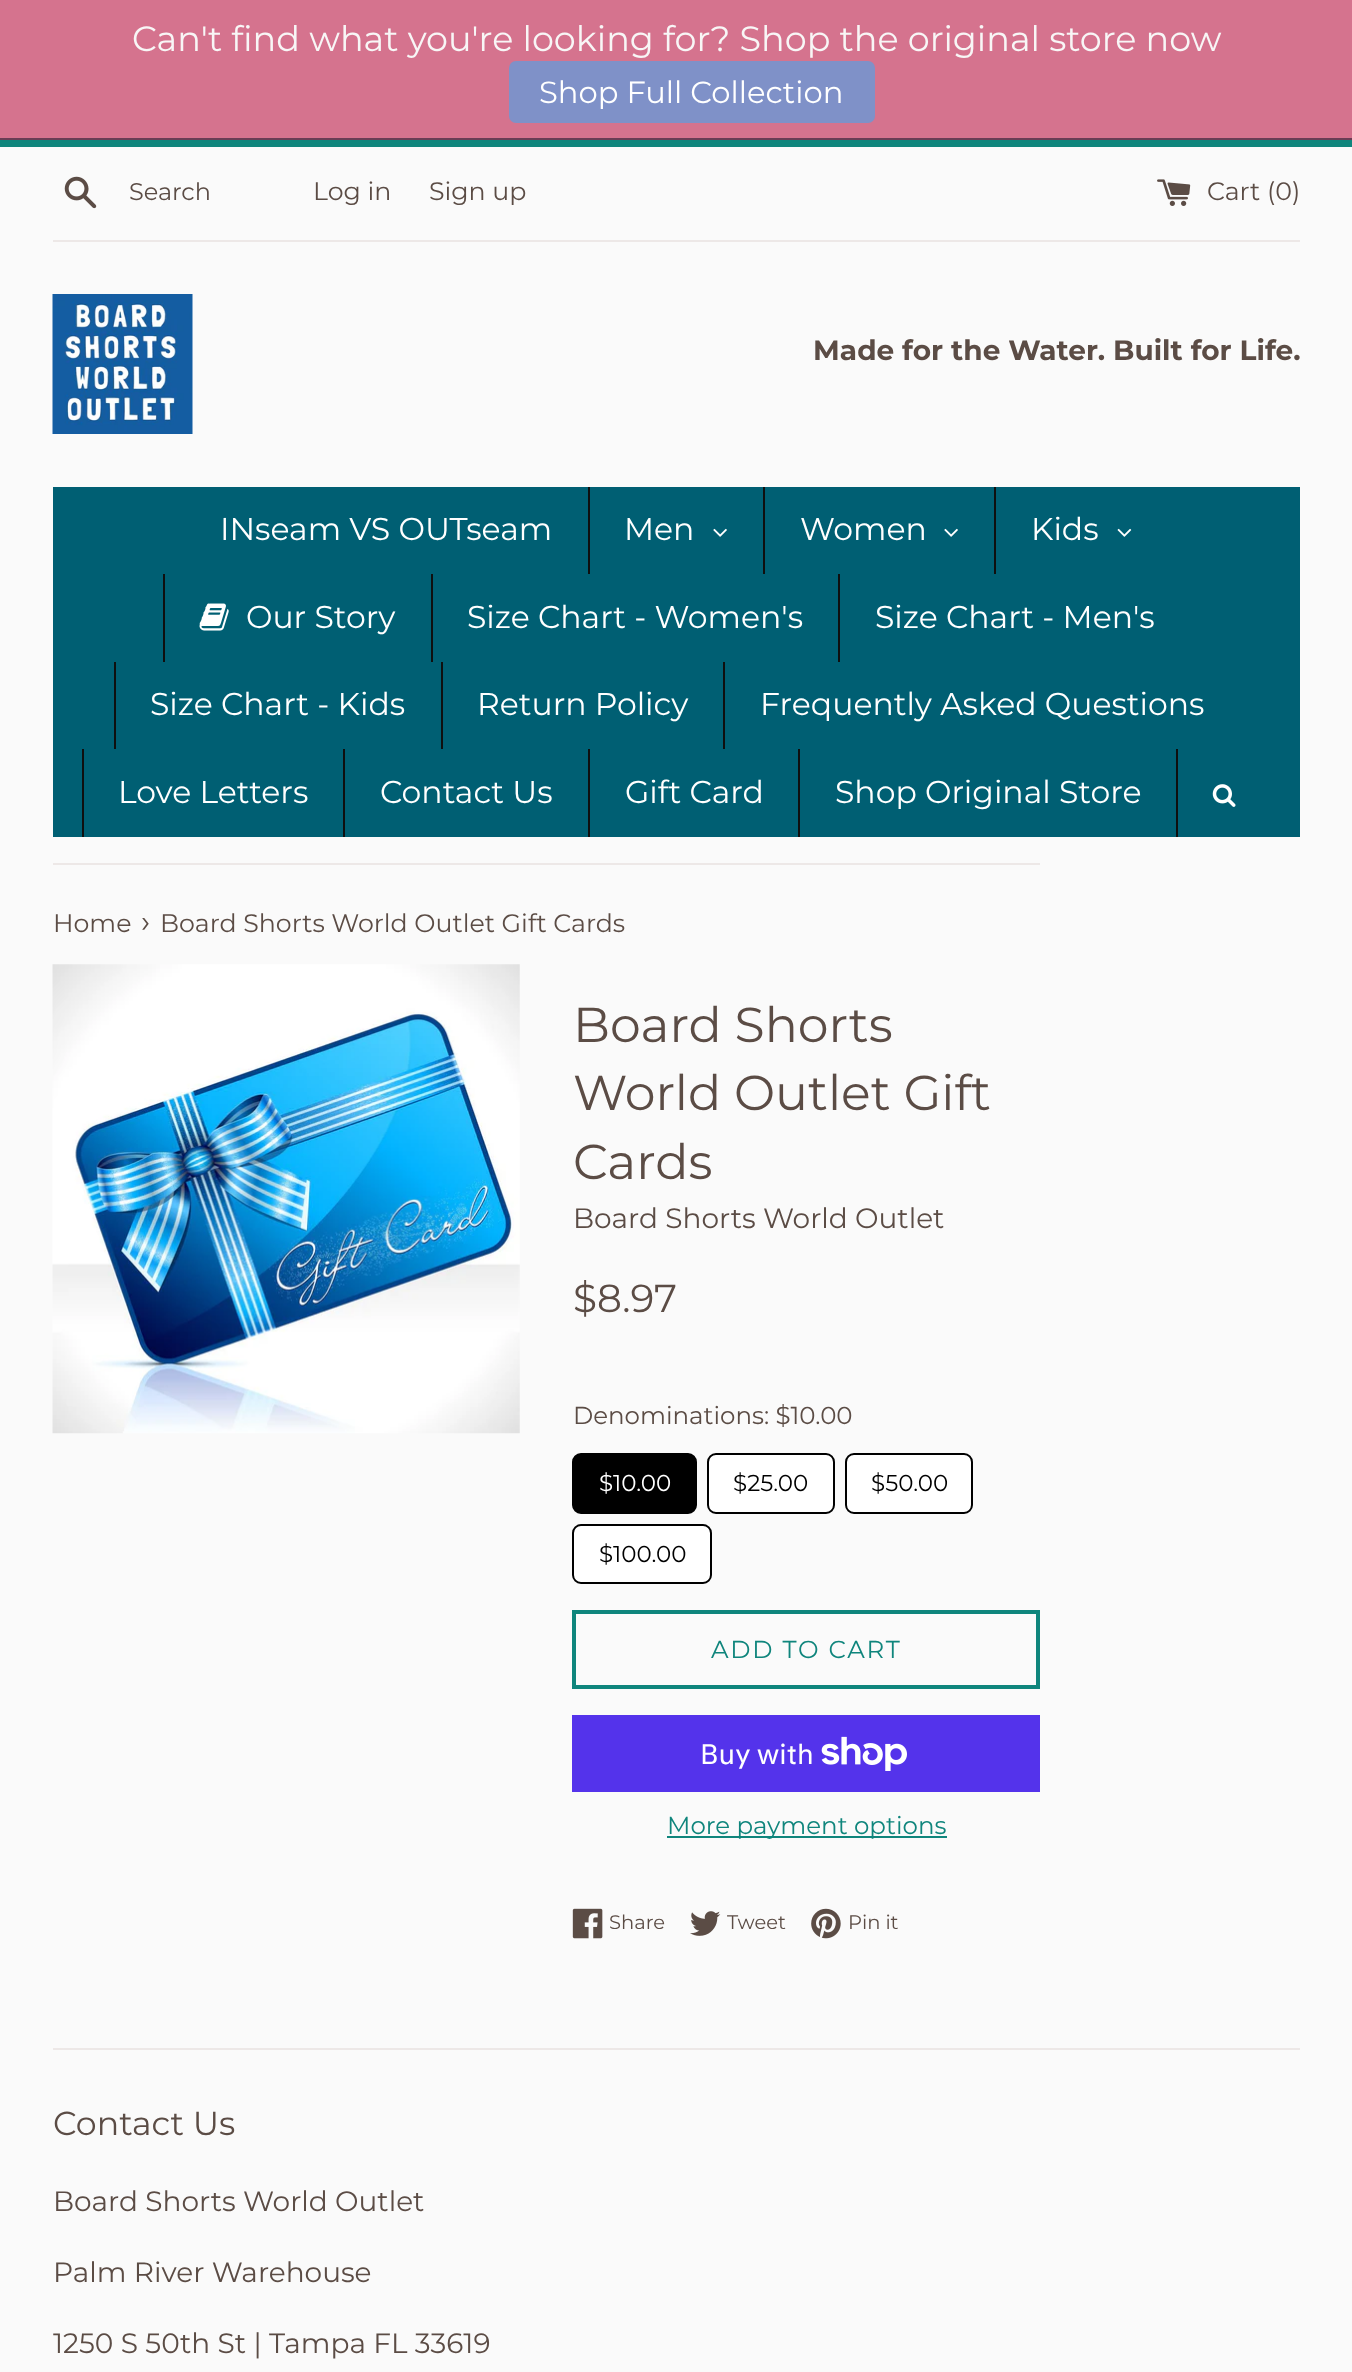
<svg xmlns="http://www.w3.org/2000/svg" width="1352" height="2372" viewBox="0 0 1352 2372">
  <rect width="100%" height="100%" fill="#fafafa"/>
  <rect x="0" y="0" width="1352" height="138" fill="#d5738e"/>
  <text x="132" y="51" font-family="Montserrat" font-size="35" font-weight="100" fill="#f8f6f6">Can't find what you're looking for? Shop the original store now</text>
  <rect x="509" y="61" width="366" height="62" rx="7" fill="#7f91c8"/>
  <text x="539" y="103" font-family="Montserrat" font-size="30.6" font-weight="100" fill="#ffffff">Shop Full Collection</text>
  <rect x="0" y="140" width="1352" height="7" fill="#0f857c"/>
  <rect x="0" y="138" width="1352" height="2" fill="#693d54"/>
  <image x="64" y="176" width="33" height="33" href="img1.png"/>
  <text x="129" y="200" font-family="Montserrat" font-size="24" font-weight="100" fill="#5b4c45">Search</text>
  <text x="313" y="200" font-family="Montserrat" font-size="25.25" font-weight="100" fill="#5b4c45">Log in</text>
  <text x="429" y="200" font-family="Montserrat" font-size="25.25" font-weight="100" fill="#5b4c45">Sign up</text>
  <image x="1157" y="179" width="34" height="27" href="img2.png"/>
  <text x="1207" y="200" font-family="Montserrat" font-size="25.25" font-weight="100" fill="#5b4c45">Cart (0)</text>
  <rect x="53" y="240" width="1247" height="2" fill="#ede8e7"/>
  <image x="52" y="294" width="141" height="140" href="img3.png"/>
  <text x="813" y="360" font-family="Montserrat" font-size="28" font-weight="bold" fill="#5b4c45">Made for the Water. Built for Life.</text>
  <rect x="53" y="487" width="1247" height="350" fill="#005f73"/>
  <text x="220" y="540" font-family="Montserrat" font-size="31.5" font-weight="100" fill="#ffffff">INseam VS OUTseam</text>
  <rect x="588" y="487" width="2" height="87" fill="#0f0f0f"/>
  <text x="624" y="540" font-family="Montserrat" font-size="31.5" font-weight="100" fill="#ffffff">Men</text>
  <image x="713" y="528" width="14" height="9" href="img4.png"/>
  <rect x="763" y="487" width="2" height="87" fill="#0f0f0f"/>
  <text x="800" y="540" font-family="Montserrat" font-size="31.5" font-weight="100" fill="#ffffff">Women</text>
  <image x="944" y="528" width="14" height="9" href="img4.png"/>
  <rect x="994" y="487" width="2" height="87" fill="#0f0f0f"/>
  <text x="1031" y="540" font-family="Montserrat" font-size="31.5" font-weight="100" fill="#ffffff">Kids</text>
  <image x="1117" y="528" width="15" height="9" href="img5.png"/>
  <rect x="163" y="574" width="2" height="88" fill="#0f0f0f"/>
  <image x="199" y="603" width="30" height="28" href="img6.png"/>
  <text x="246" y="628" font-family="Montserrat" font-size="31.5" font-weight="100" fill="#ffffff">Our Story</text>
  <rect x="431" y="574" width="2" height="88" fill="#0f0f0f"/>
  <text x="467" y="628" font-family="Montserrat" font-size="31.5" font-weight="100" fill="#ffffff">Size Chart - Women's</text>
  <rect x="838" y="574" width="2" height="88" fill="#0f0f0f"/>
  <text x="875" y="628" font-family="Montserrat" font-size="31.5" font-weight="100" fill="#ffffff">Size Chart - Men's</text>
  <rect x="114" y="662" width="2" height="87" fill="#0f0f0f"/>
  <text x="150" y="715" font-family="Montserrat" font-size="31.5" font-weight="100" fill="#ffffff">Size Chart - Kids</text>
  <rect x="441" y="662" width="2" height="87" fill="#0f0f0f"/>
  <text x="477" y="715" font-family="Montserrat" font-size="31.5" font-weight="100" fill="#ffffff">Return Policy</text>
  <rect x="723" y="662" width="2" height="87" fill="#0f0f0f"/>
  <text x="760" y="715" font-family="Montserrat" font-size="31.5" font-weight="100" fill="#ffffff">Frequently Asked Questions</text>
  <rect x="82" y="749" width="2" height="88" fill="#0f0f0f"/>
  <text x="118" y="803" font-family="Montserrat" font-size="31.5" font-weight="100" fill="#ffffff">Love Letters</text>
  <rect x="343" y="749" width="2" height="88" fill="#0f0f0f"/>
  <text x="380" y="803" font-family="Montserrat" font-size="31.5" font-weight="100" fill="#ffffff">Contact Us</text>
  <rect x="588" y="749" width="2" height="88" fill="#0f0f0f"/>
  <text x="625" y="803" font-family="Montserrat" font-size="31.5" font-weight="100" fill="#ffffff">Gift Card</text>
  <rect x="798" y="749" width="2" height="88" fill="#0f0f0f"/>
  <text x="835" y="803" font-family="Montserrat" font-size="31.5" font-weight="100" fill="#ffffff">Shop Original Store</text>
  <rect x="1176" y="749" width="2" height="88" fill="#0f0f0f"/>
  <image x="1212" y="784" width="24" height="23" href="img7.png"/>
  <rect x="53" y="863" width="987" height="2" fill="#ede8e7"/>
  <text x="53" y="932" font-family="Montserrat" font-size="25.25" font-weight="100" fill="#5b4c45">Home</text>
  <text x="141" y="932" font-family="Montserrat" font-size="31" font-weight="100" fill="#5b4c45">›</text>
  <text x="160" y="932" font-family="Montserrat" font-size="25.25" font-weight="100" fill="#5b4c45">Board Shorts World Outlet Gift Cards</text>
  <image x="52" y="964" width="468" height="470" href="img8.png"/>
  <text x="573" y="1042" font-family="Montserrat" font-size="49" font-weight="100" fill="#5b4c45">Board Shorts</text>
  <text x="573" y="1110" font-family="Montserrat" font-size="49" font-weight="100" fill="#5b4c45">World Outlet Gift</text>
  <text x="573" y="1179" font-family="Montserrat" font-size="49" font-weight="100" fill="#5b4c45">Cards</text>
  <text x="573" y="1228" font-family="Montserrat" font-size="28" font-weight="100" fill="#5b4c45">Board Shorts World Outlet</text>
  <text x="573" y="1312" font-family="Montserrat" font-size="39" font-weight="100" fill="#5b4c45">$8.97</text>
  <text x="573" y="1424" font-family="Montserrat" font-size="24.5" font-weight="100" fill="#5b4c45">Denominations: $10.00</text>
  <rect x="573" y="1454" width="123" height="59" rx="8" fill="#000000" stroke="#000000" stroke-width="2"/>
  <text x="599" y="1491" font-family="Montserrat" font-size="23" font-weight="100" fill="#ffffff">$10.00</text>
  <rect x="708" y="1454" width="126" height="59" rx="8" fill="#ffffff" stroke="#000000" stroke-width="2"/>
  <text x="733" y="1491" font-family="Montserrat" font-size="23" font-weight="100" fill="#000000">$25.00</text>
  <rect x="846" y="1454" width="126" height="59" rx="8" fill="#ffffff" stroke="#000000" stroke-width="2"/>
  <text x="871" y="1491" font-family="Montserrat" font-size="23" font-weight="100" fill="#000000">$50.00</text>
  <rect x="573" y="1525" width="138" height="58" rx="8" fill="#ffffff" stroke="#000000" stroke-width="2"/>
  <text x="599" y="1562" font-family="Montserrat" font-size="23" font-weight="100" fill="#000000">$100.00</text>
  <rect x="574" y="1612" width="464" height="75" fill="none" stroke="#0f857c" stroke-width="4"/>
  <text x="711" y="1658" font-family="Montserrat" font-size="24.5" font-weight="100" letter-spacing="1.75" fill="#0f857c">ADD TO CART</text>
  <rect x="572" y="1715" width="468" height="77" fill="#5433eb"/>
  <text x="700" y="1764" font-family="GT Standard" font-size="28" fill="#ffffff">Buy with</text>
  <image x="821" y="1736" width="86" height="35" href="img9.png"/>
  <rect x="667" y="1836" width="280" height="2" fill="#0f857c"/>
  <text x="667" y="1834" font-family="Montserrat" font-size="24.5" font-weight="100" fill="#0f857c">More payment options</text>
  <image x="572" y="1908" width="31" height="31" href="img10.png"/>
  <text x="609" y="1929" font-family="Montserrat" font-size="19.5" font-weight="100" fill="#5b4c45">Share</text>
  <image x="690" y="1911" width="31" height="25" href="img11.png"/>
  <text x="727" y="1929" font-family="Montserrat" font-size="19.5" font-weight="100" fill="#5b4c45">Tweet</text>
  <image x="811" y="1908" width="30" height="31" href="img12.png"/>
  <text x="848" y="1929" font-family="Montserrat" font-size="19.5" font-weight="100" fill="#5b4c45">Pin it</text>
  <rect x="53" y="2048" width="1247" height="2" fill="#ede8e7"/>
  <text x="53" y="2135" font-family="Montserrat" font-size="33.25" font-weight="100" fill="#5b4c45">Contact Us</text>
  <text x="53" y="2211" font-family="Montserrat" font-size="28" font-weight="100" fill="#5b4c45">Board Shorts World Outlet</text>
  <text x="53" y="2282" font-family="Montserrat" font-size="28" font-weight="100" fill="#5b4c45">Palm River Warehouse</text>
  <text x="53" y="2353" font-family="Montserrat" font-size="28" font-weight="100" fill="#5b4c45">1250 S 50th St | Tampa FL 33619</text>
</svg>
